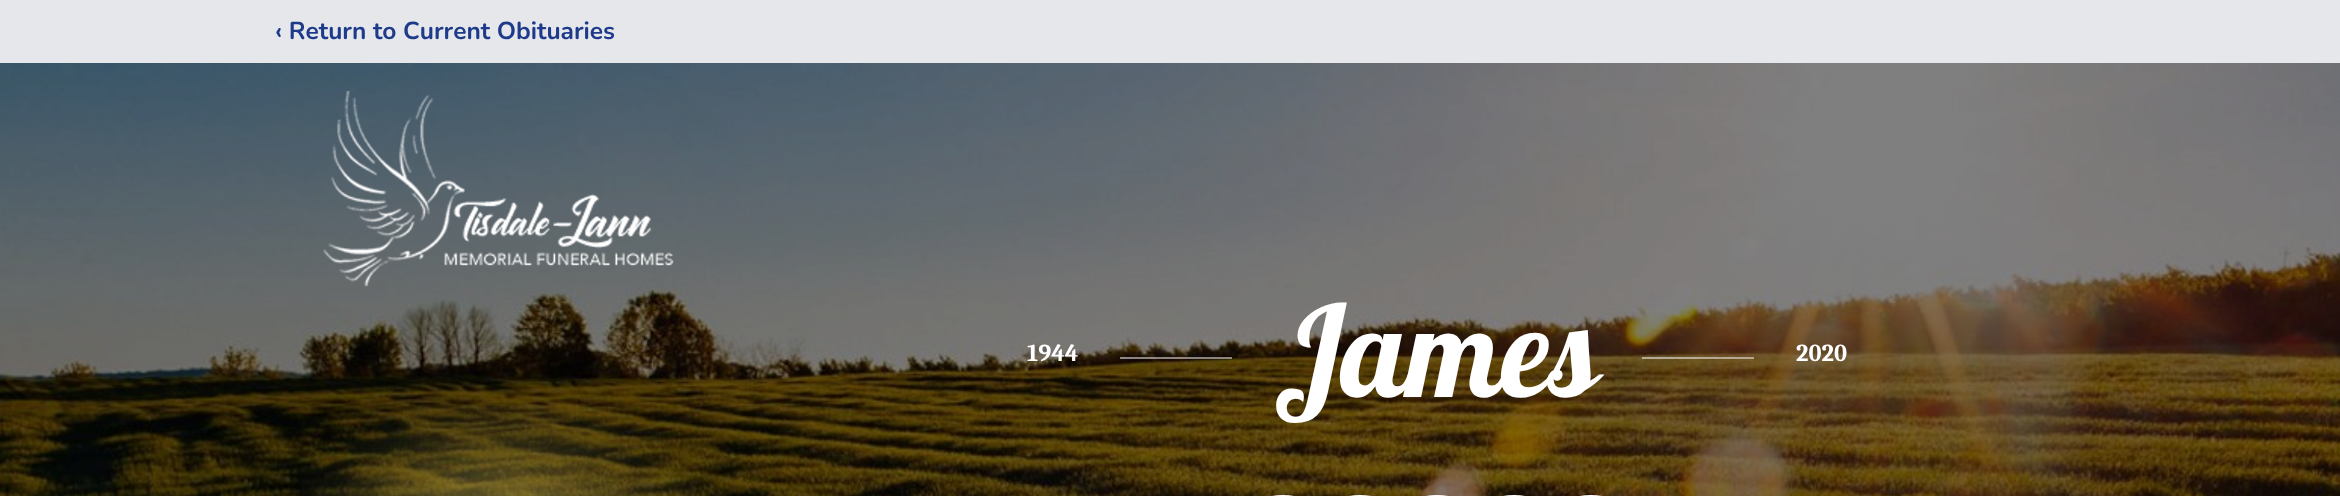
<svg xmlns="http://www.w3.org/2000/svg" width="2340" height="496" viewBox="0 0 2340 496">
  <style>*{font-kerning:none!important;font-variant-ligatures:none!important}</style>
  <rect width="100%" height="100%" fill="#e5e7eb"/>
  <text x="275" y="39" font-family="Nunito" font-size="24.5" font-weight="bold" fill="#1e3a8a">‹ Return to Current Obituaries</text>
  <image x="0" y="63" width="2340" height="433" href="img1.png"/>
  <image x="323" y="91" width="351" height="196" href="img2.png"/>
  <text x="1027" y="361" font-family="Caladea" font-size="24.5" font-weight="bold" fill="#ffffff">1944</text>
  <rect x="1120" y="357" width="112" height="2" fill="#ffffff" fill-opacity="0.5"/>
  <text x="1274" y="397" font-family="Lobster" font-size="126" fill="#ffffff">James</text>
  <rect x="1642" y="357" width="112" height="2" fill="#ffffff" fill-opacity="0.5"/>
  <text x="1796" y="361" font-family="Caladea" font-size="24.5" font-weight="bold" fill="#ffffff">2020</text>
  <rect x="1251" y="496" width="64" height="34" rx="32" fill="none" stroke="#ffffff" stroke-width="2"/>
  <rect x="1328" y="496" width="64" height="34" rx="32" fill="none" stroke="#ffffff" stroke-width="2"/>
  <rect x="1405" y="496" width="64" height="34" rx="32" fill="none" stroke="#ffffff" stroke-width="2"/>
  <rect x="1482" y="496" width="64" height="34" rx="32" fill="none" stroke="#ffffff" stroke-width="2"/>
  <rect x="1559" y="496" width="64" height="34" rx="32" fill="none" stroke="#ffffff" stroke-width="2"/>
  <image x="302" y="404" width="396" height="92" href="img3.png"/>
</svg>
